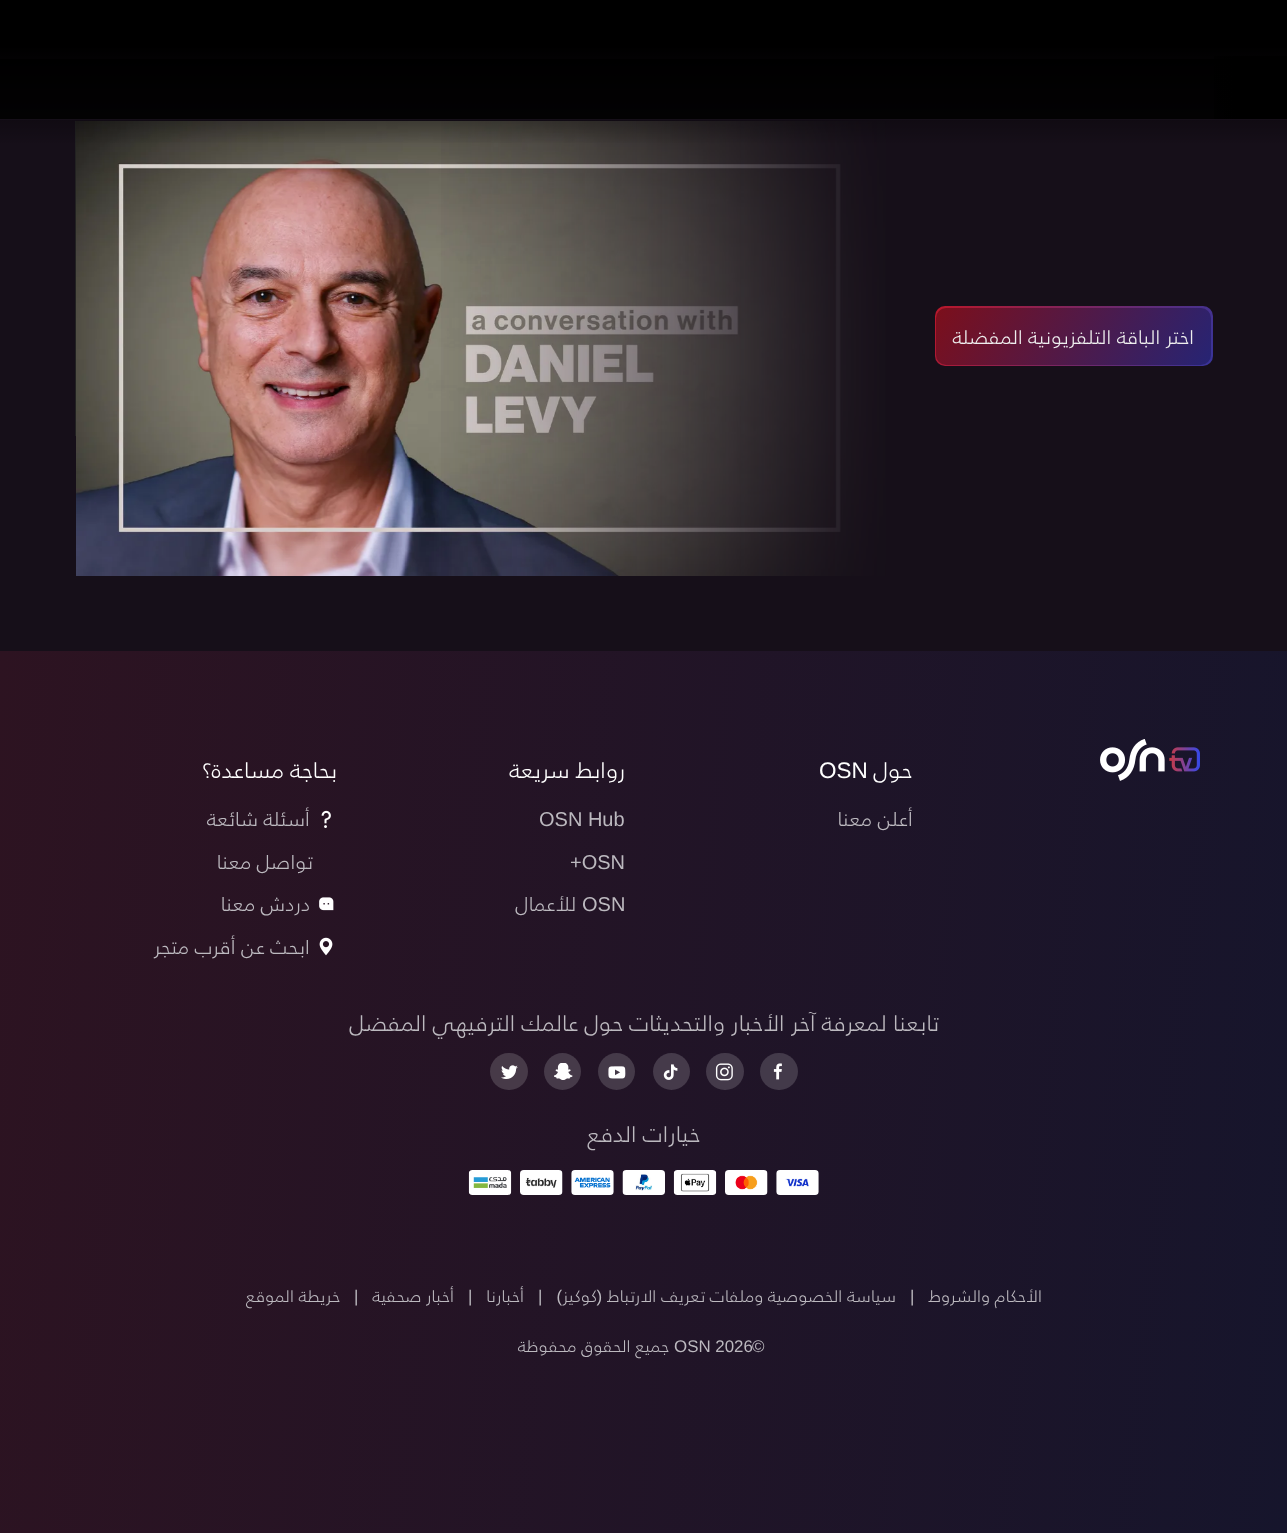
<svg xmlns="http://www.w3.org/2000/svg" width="1287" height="1533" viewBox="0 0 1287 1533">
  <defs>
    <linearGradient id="g1" gradientUnits="userSpaceOnUse" x1="644" y1="146" x2="644" y2="46"><stop offset="0" stop-color="#000000" stop-opacity="0"/><stop offset="1" stop-color="#000000"/></linearGradient>
    <linearGradient id="g2" gradientUnits="userSpaceOnUse" x1="1159" y1="59" x2="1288" y2="59"><stop offset="0" stop-color="#000000" stop-opacity="0"/><stop offset="0.6" stop-color="#000000"/><stop offset="1" stop-color="#000000"/></linearGradient>
    <linearGradient id="g3" gradientUnits="userSpaceOnUse" x1="1196" y1="399" x2="951" y2="274"><stop offset="0" stop-color="#38349a"/><stop offset="1" stop-color="#ba172a"/></linearGradient>
    <linearGradient id="g4" gradientUnits="userSpaceOnUse" x1="962" y1="266" x2="1186" y2="406"><stop offset="0" stop-color="#7c0f1b"/><stop offset="1" stop-color="#262474"/></linearGradient>
    <linearGradient id="g5" gradientUnits="userSpaceOnUse" x1="-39" y1="1021" x2="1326" y2="1164"><stop offset="0" stop-color="#2d1321"/><stop offset="1" stop-color="#16152c"/></linearGradient>
  </defs>
  <rect width="100%" height="100%" fill="#000000"/>
  <rect x="0" y="47" width="1287" height="604" fill="#160f19"/>
  <rect x="75.5" y="121.5" width="559" height="314" fill="none" stroke="#222222"/>
  <image x="76" y="121" width="810" height="455" href="img1.png"/>
  <image x="441" y="121" width="445" height="455" href="img2.png"/>
  <rect x="0" y="47" width="1287" height="96" fill="url(#g1)"/>
  <rect x="0" y="59" width="1236" height="60" fill="#000000" fill-opacity="0.8"/>
  <rect x="0" y="119" width="1287" height="1" fill="#160f19"/>
  <rect x="1214" y="56" width="73" height="63" fill="url(#g2)"/>
  <rect x="935" y="306" width="278" height="60" rx="10" fill="url(#g3)"/>
  <rect x="936" y="308" width="275" height="57" rx="10" fill="url(#g4)"/>
  <text x="1194" y="344" font-family="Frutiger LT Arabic" font-size="19.75" font-weight="300" direction="rtl" fill="#eeeeee">اختر الباقة التلفزيونية المفضلة</text>
  <rect x="0" y="651" width="1287" height="882" fill="url(#g5)"/>
  <image x="1100" y="739" width="100" height="42" href="img3.png"/>
  <text x="912" y="778" font-family="Frutiger LT Arabic" font-size="22.5" font-weight="300" direction="rtl" fill="#ffffff">حول</text>
  <text x="819" y="778" font-family="Liberation Sans" font-size="22.5" fill="#ffffff">OSN</text>
  <text x="913" y="826" font-family="Frutiger LT Arabic" font-size="20" font-weight="300" direction="rtl" fill="#bcb9bf">أعلن معنا</text>
  <text x="625" y="778" font-family="Frutiger LT Arabic" font-size="22.5" font-weight="300" direction="rtl" fill="#ffffff">روابط سريعة</text>
  <text x="539" y="826" font-family="Liberation Sans" font-size="20" fill="#bcb9bf">OSN Hub</text>
  <text x="570" y="869" font-family="Liberation Sans" font-size="20" fill="#bcb9bf">+OSN</text>
  <text x="582" y="911" font-family="Liberation Sans" font-size="20" fill="#bcb9bf">OSN</text>
  <text x="576" y="911" font-family="Frutiger LT Arabic" font-size="20" font-weight="300" direction="rtl" fill="#bcb9bf">للأعمال</text>
  <text x="337" y="778" font-family="Frutiger LT Arabic" font-size="22.5" font-weight="300" direction="rtl" fill="#ffffff">بحاجة مساعدة؟</text>
  <image x="321" y="810" width="10" height="18" href="img4.png"/>
  <text x="310" y="826" font-family="Frutiger LT Arabic" font-size="20" font-weight="300" direction="rtl" fill="#bcb9bf">أسئلة شائعة</text>
  <text x="313" y="869" font-family="Frutiger LT Arabic" font-size="20" font-weight="300" direction="rtl" fill="#bcb9bf">تواصل معنا</text>
  <image x="319" y="897" width="15" height="14" href="img5.png"/>
  <text x="310" y="911" font-family="Frutiger LT Arabic" font-size="20" font-weight="300" direction="rtl" fill="#bcb9bf">دردش معنا</text>
  <image x="319" y="937" width="14" height="19" href="img6.png"/>
  <text x="310" y="954" font-family="Frutiger LT Arabic" font-size="20" font-weight="300" direction="rtl" fill="#bcb9bf">ابحث عن أقرب متجر</text>
  <text x="939" y="1031" font-family="Frutiger LT Arabic" font-size="22.5" font-weight="300" direction="rtl" fill="#bcb9bf">تابعنا لمعرفة آخر الأخبار والتحديثات حول عالمك الترفيهي المفضل</text>
  <rect x="760" y="1053" width="38" height="37" rx="18.5" fill="#433a4a"/>
  <image x="773" y="1063" width="9" height="17" href="img7.png"/>
  <rect x="706" y="1053" width="38" height="37" rx="18.5" fill="#443a4a"/>
  <image x="715" y="1063" width="18" height="18" href="img8.png"/>
  <circle cx="671.5" cy="1071.5" r="18.5" fill="#453a4a"/>
  <image x="663" y="1064" width="15" height="16" href="img9.png"/>
  <circle cx="616.5" cy="1071.5" r="18.5" fill="#453a49"/>
  <image x="608" y="1066" width="18" height="13" href="img10.png"/>
  <circle cx="562.5" cy="1071.5" r="18.5" fill="#463a49"/>
  <image x="554" y="1063" width="19" height="17" href="img11.png"/>
  <rect x="490" y="1053" width="38" height="37" rx="18.5" fill="#473a48"/>
  <image x="501" y="1065" width="17" height="14" href="img12.png"/>
  <text x="700" y="1142" font-family="Frutiger LT Arabic" font-size="22.5" font-weight="300" direction="rtl" fill="#bcb9bf">خيارات الدفع</text>
  <image x="776" y="1170" width="43" height="25" href="img13.png"/>
  <image x="725" y="1170" width="43" height="25" href="img14.png"/>
  <image x="673" y="1170" width="44" height="25" href="img15.png"/>
  <image x="622" y="1170" width="43" height="25" href="img16.png"/>
  <image x="571" y="1170" width="43" height="25" href="img17.png"/>
  <image x="520" y="1170" width="43" height="25" href="img18.png"/>
  <image x="468" y="1170" width="44" height="25" href="img19.png"/>
  <text x="1042" y="1302" font-family="Frutiger LT Arabic" font-size="16.9" font-weight="300" direction="rtl" fill="#bcb9bf">الأحكام والشروط</text>
  <text x="910" y="1302" font-family="Liberation Sans" font-size="16.9" fill="#bcb9bf">|</text>
  <text x="896" y="1302" font-family="Frutiger LT Arabic" font-size="16.9" font-weight="300" direction="rtl" fill="#bcb9bf">سياسة الخصوصية وملفات تعريف الارتباط</text>
  <text x="602" y="1302" font-family="Liberation Sans" font-size="16.9" direction="rtl" fill="#bcb9bf">(</text>
  <text x="597" y="1302" font-family="Frutiger LT Arabic" font-size="16.9" font-weight="300" direction="rtl" fill="#bcb9bf">كوكيز</text>
  <text x="562" y="1302" font-family="Liberation Sans" font-size="16.9" direction="rtl" fill="#bcb9bf">)</text>
  <text x="538" y="1302" font-family="Liberation Sans" font-size="16.9" fill="#bcb9bf">|</text>
  <text x="524" y="1302" font-family="Frutiger LT Arabic" font-size="16.9" font-weight="300" direction="rtl" fill="#bcb9bf">أخبارنا</text>
  <text x="468" y="1302" font-family="Liberation Sans" font-size="16.9" fill="#bcb9bf">|</text>
  <text x="454" y="1302" font-family="Frutiger LT Arabic" font-size="16.9" font-weight="300" direction="rtl" fill="#bcb9bf">أخبار صحفية</text>
  <text x="354" y="1302" font-family="Liberation Sans" font-size="16.9" fill="#bcb9bf">|</text>
  <text x="340" y="1302" font-family="Frutiger LT Arabic" font-size="16.9" font-weight="300" direction="rtl" fill="#bcb9bf">خريطة الموقع</text>
  <text x="752" y="1352" font-family="Liberation Sans" font-size="16.9" fill="#bcb9bf">©</text>
  <text x="674" y="1352" font-family="Liberation Sans" font-size="16.9" fill="#bcb9bf">OSN 2026</text>
  <text x="669" y="1352" font-family="Frutiger LT Arabic" font-size="16.9" font-weight="300" direction="rtl" fill="#bcb9bf">جميع الحقوق محفوظة</text>
</svg>
